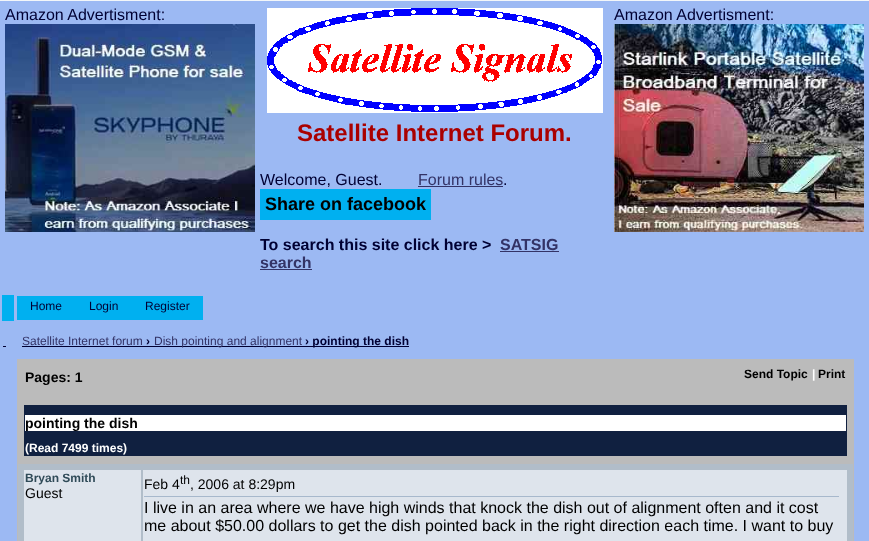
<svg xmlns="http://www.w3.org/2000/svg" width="869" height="541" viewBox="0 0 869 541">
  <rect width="100%" height="100%" fill="#f2f6f9"/>
  <rect x="0" y="1" width="869" height="540" fill="#9cb9f3"/>
  <text x="5" y="20" font-family="Liberation Sans" font-size="16" fill="#000033">Amazon Advertisment:</text>
  <image x="5" y="24" width="250" height="208" href="img1.png"/>
  <text x="614" y="20" font-family="Liberation Sans" font-size="16" fill="#000033">Amazon Advertisment:</text>
  <image x="614" y="24" width="250" height="208" href="img2.png"/>
  <image x="267" y="8" width="336" height="105" href="img3.png"/>
  <text x="297" y="141" font-family="Liberation Sans" font-size="24" font-weight="bold" fill="#aa0000">Satellite Internet Forum.</text>
  <text x="260" y="185" font-family="Liberation Sans" font-size="16" fill="#000033">Welcome, Guest.</text>
  <text x="418" y="185" font-family="Liberation Sans" font-size="16" fill="#333366">Forum rules</text>
  <text x="503" y="185" font-family="Liberation Sans" font-size="16" fill="#000033">.</text>
  <rect x="418" y="186" width="85" height="1" fill="#333366"/>
  <rect x="260" y="189" width="171" height="31" fill="#00b0f0"/>
  <text x="265" y="210" font-family="Liberation Sans" font-size="18" font-weight="bold" fill="#000000">Share on facebook</text>
  <text x="260" y="250" font-family="Liberation Sans" font-size="16" font-weight="bold" fill="#000033">To search this site click here &gt;</text>
  <text x="500" y="250" font-family="Liberation Sans" font-size="16" font-weight="bold" fill="#333366">SATSIG</text>
  <rect x="500" y="251" width="59" height="1" fill="#333366"/>
  <text x="260" y="268" font-family="Liberation Sans" font-size="16" font-weight="bold" fill="#333366">search</text>
  <rect x="260" y="269" width="52" height="1" fill="#333366"/>
  <rect x="2" y="295" width="12" height="26" fill="#00b0f0"/>
  <rect x="17" y="296" width="186" height="24" fill="#00b0f0"/>
  <text x="30" y="310" font-family="Liberation Sans" font-size="12" fill="#000033">Home</text>
  <text x="89" y="310" font-family="Liberation Sans" font-size="12" fill="#000033">Login</text>
  <text x="145" y="310" font-family="Liberation Sans" font-size="12" fill="#000033">Register</text>
  <rect x="3" y="346" width="3" height="1" fill="#000033"/>
  <text x="22" y="345" font-family="Liberation Sans" font-size="12" fill="#333366">Satellite Internet forum</text>
  <text x="146" y="345" font-family="Liberation Sans" font-size="12" font-weight="bold" fill="#000033">›</text>
  <rect x="22" y="346" width="387" height="1" fill="#000033"/>
  <text x="154" y="345" font-family="Liberation Sans" font-size="12" fill="#333366">Dish pointing and alignment</text>
  <text x="305" y="345" font-family="Liberation Sans" font-size="12" font-weight="bold" fill="#000033">› pointing the dish</text>
  <rect x="17" y="359" width="837" height="182" fill="#bbbbbb"/>
  <text x="25" y="382" font-family="Liberation Sans" font-size="14" font-weight="bold" fill="#000000">Pages: 1</text>
  <text x="744" y="378" font-family="Liberation Sans" font-size="12" font-weight="bold" fill="#000000">Send Topic</text>
  <text x="812" y="378" font-family="Liberation Sans" font-size="12" font-weight="bold" fill="#ffffff">|</text>
  <text x="818" y="378" font-family="Liberation Sans" font-size="12" font-weight="bold" fill="#000000">Print</text>
  <rect x="24" y="405" width="823" height="51" fill="#102040"/>
  <rect x="25" y="415" width="821" height="16" fill="#ffffff"/>
  <text x="25" y="428" font-family="Liberation Sans" font-size="14" font-weight="bold" fill="#000000">pointing the dish</text>
  <text x="25" y="452" font-family="Liberation Sans" font-size="12" font-weight="bold" fill="#ffffff">(Read 7499 times)</text>
  <rect x="18" y="464" width="835" height="77" fill="#b1bdc9"/>
  <rect x="24" y="470" width="117" height="71" fill="#dee4ec"/>
  <text x="25" y="482" font-family="Liberation Sans" font-size="12" font-weight="bold" fill="#304b58">Bryan Smith</text>
  <text x="25" y="498" font-family="Liberation Sans" font-size="14" fill="#000000">Guest</text>
  <rect x="143" y="470" width="704" height="71" fill="#dee4ec"/>
  <rect x="144" y="496" width="695" height="1" fill="#a7b8cc"/>
  <text x="144" y="489" font-family="Liberation Sans" font-size="14" fill="#000000">Feb 4</text>
  <text x="180" y="484" font-family="Liberation Sans" font-size="12" fill="#000000">th</text>
  <text x="190" y="489" font-family="Liberation Sans" font-size="14" fill="#000000">, 2006 at 8:29pm</text>
  <text x="144" y="513" font-family="Liberation Sans" font-size="16" fill="#000000">I live in an area where we have high winds that knock the dish out of alignment often and it cost</text>
  <text x="144" y="531" font-family="Liberation Sans" font-size="16" fill="#000000">me about $50.00 dollars to get the dish pointed back in the right direction each time. I want to buy</text>
</svg>
